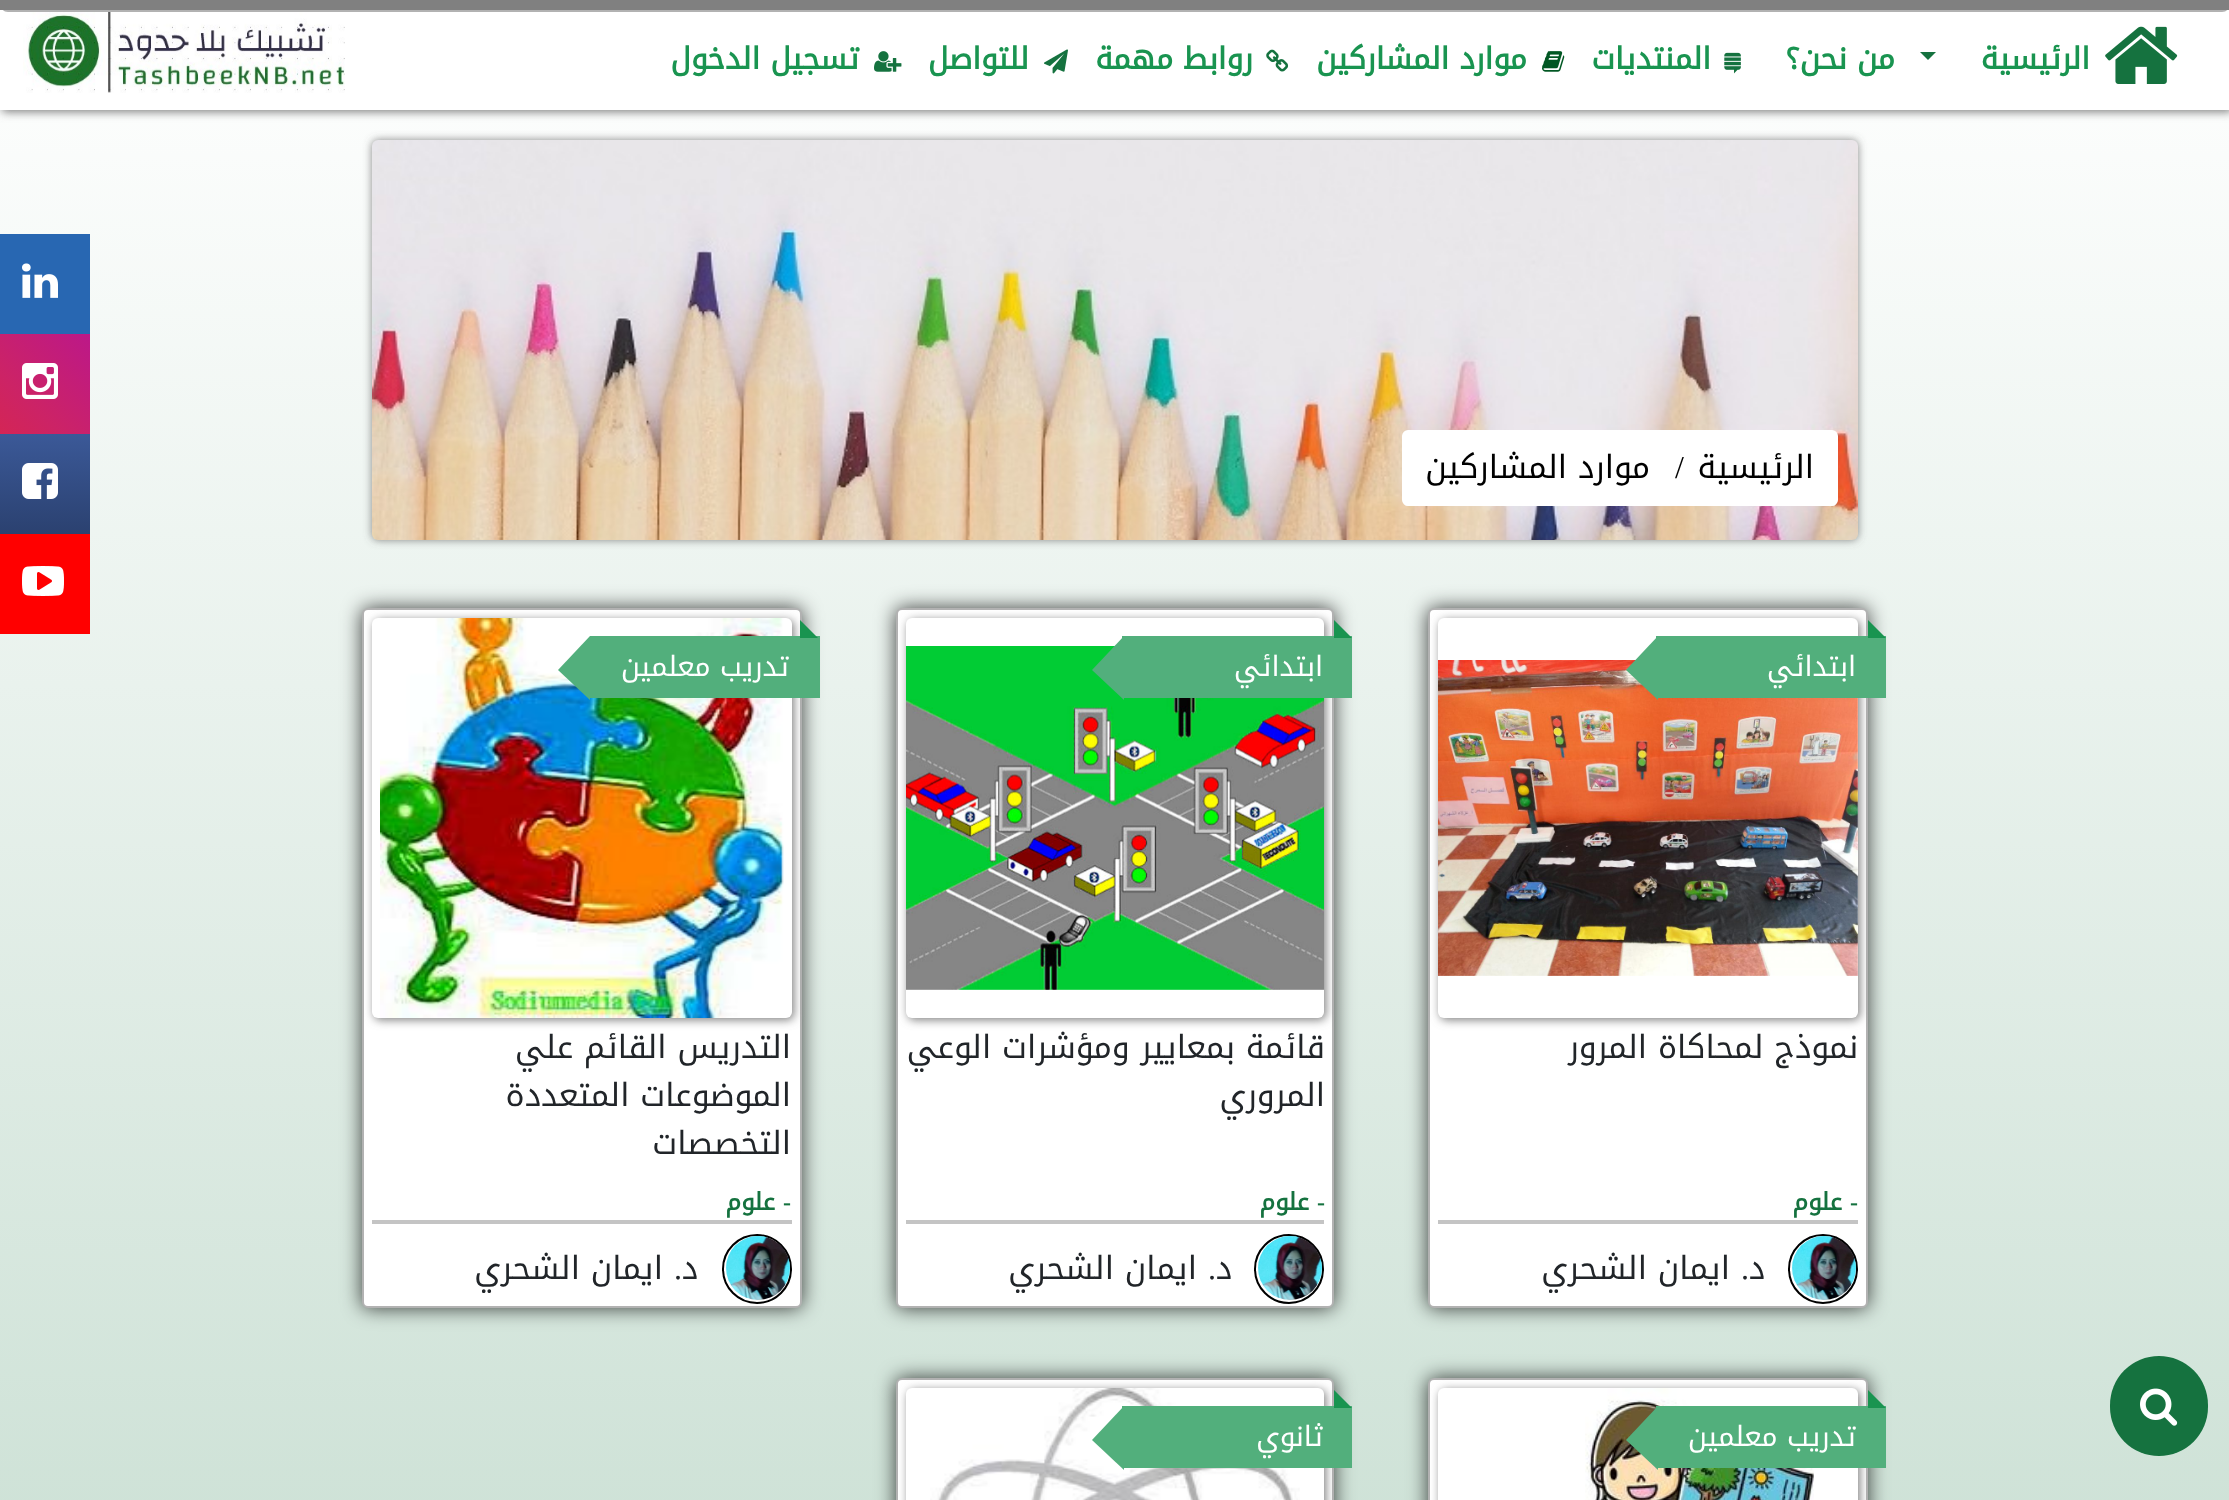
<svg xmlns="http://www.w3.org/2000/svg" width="2229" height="1500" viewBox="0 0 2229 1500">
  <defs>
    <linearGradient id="g1" gradientUnits="userSpaceOnUse" x1="1115" y1="0" x2="1115" y2="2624"><stop offset="0" stop-color="#ffffff"/><stop offset="1" stop-color="#abcdba"/></linearGradient>
    <filter id="blur1" x="-50%" y="-200%" width="200%" height="500%"><feGaussianBlur stdDeviation="5"/></filter>
    <filter id="blur2" x="-50%" y="-200%" width="200%" height="500%"><feGaussianBlur stdDeviation="4"/></filter>
    <filter id="blur3" x="-50%" y="-200%" width="200%" height="500%"><feGaussianBlur stdDeviation="10"/></filter>
    <linearGradient id="g2" gradientUnits="userSpaceOnUse" x1="-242" y1="512" x2="12" y2="257"><stop offset="0" stop-color="#f09433"/><stop offset="0.25" stop-color="#e6683c"/><stop offset="0.5" stop-color="#dc2743"/><stop offset="0.75" stop-color="#cc2366"/><stop offset="1" stop-color="#bc1888"/></linearGradient>
    <linearGradient id="g3" gradientUnits="userSpaceOnUse" x1="-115" y1="434" x2="-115" y2="534"><stop offset="0" stop-color="#3b5998"/><stop offset="1" stop-color="#2b4170"/></linearGradient>
  </defs>
  <rect width="100%" height="100%" fill="#ffffff"/>
  <rect x="0" y="110" width="2229" height="1390" fill="url(#g1)"/>
  <rect x="2" y="2" width="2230" height="110" fill="#808080" filter="url(#blur1)"/>
  <rect x="0" y="10" width="2229" height="100" fill="#ffffff"/>
  <rect x="1" y="-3" width="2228" height="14" rx="7" fill="none" stroke="#b2b2b2" stroke-width="2"/>
  <rect x="0" y="0" width="2229" height="10" fill="#808080"/>
  <image x="2105" y="26" width="73" height="58" href="img1.png"/>
  <text x="2090" y="69" font-family="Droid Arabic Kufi" font-size="30" font-weight="bold" direction="rtl" fill="#199450">الرئيسية</text>
  <path d="M1920 52H1936L1928 60Z" fill="#15723f"/>
  <text x="1895" y="69" font-family="Droid Arabic Kufi" font-size="30" font-weight="bold" direction="rtl" fill="#199450">من نحن؟</text>
  <image x="1724" y="52" width="17" height="22" href="img2.png"/>
  <text x="1711" y="69" font-family="Droid Arabic Kufi" font-size="30" font-weight="bold" direction="rtl" fill="#199450">المنتديات</text>
  <image x="1542" y="51" width="23" height="21" href="img3.png"/>
  <text x="1527" y="69" font-family="Droid Arabic Kufi" font-size="30" font-weight="bold" direction="rtl" fill="#199450">موارد المشاركين</text>
  <image x="1266" y="49" width="23" height="23" href="img4.png"/>
  <text x="1253" y="69" font-family="Droid Arabic Kufi" font-size="30" font-weight="bold" direction="rtl" fill="#199450">روابط مهمة</text>
  <image x="1044" y="49" width="24" height="25" href="img5.png"/>
  <text x="1029" y="69" font-family="Droid Arabic Kufi" font-size="30" font-weight="bold" direction="rtl" fill="#199450">للتواصل</text>
  <image x="874" y="51" width="28" height="21" href="img6.png"/>
  <text x="859" y="69" font-family="Droid Arabic Kufi" font-size="30" font-weight="bold" direction="rtl" fill="#199450">تسجيل الدخول</text>
  <image x="23" y="12" width="322" height="81" href="img7.png"/>
  <rect x="2110" y="1356" width="98" height="100" rx="49" fill="#15723f"/>
  <image x="2140" y="1388" width="38" height="38" href="img8.png"/>
  <rect x="372" y="140" width="1486" height="400" rx="6" fill="#5d5d5d" fill-opacity="0.75" filter="url(#blur2)"/>
  <image x="372" y="140" width="1486" height="400" href="img9.png"/>
  <path d="M1676 432H1832C1834 432 1836 434 1836 436V500C1836 502 1834 504 1832 504H1676Z" fill="#ffffff" stroke="#ffffff" stroke-width="4"/>
  <text x="1814" y="478" font-family="Droid Arabic Kufi" font-size="32" direction="rtl" fill="#000000">الرئيسية</text>
  <path d="M1408 432H1672V504H1408C1406 504 1404 502 1404 500V436C1404 434 1406 432 1408 432Z" fill="#ffffff" stroke="#ffffff" stroke-width="4"/>
  <text x="1675" y="478" font-family="Liberation Serif" font-size="32" fill="#000000">/</text>
  <text x="1650" y="478" font-family="Droid Arabic Kufi" font-size="32" direction="rtl" fill="#000000">موارد المشاركين</text>
  <rect x="1428" y="608" width="440" height="700" rx="6" fill="#000000" fill-opacity="0.75" filter="url(#blur3)"/>
  <rect x="1429" y="609" width="438" height="698" rx="5" fill="#ffffff" stroke="#b2b2b2" stroke-width="2"/>
  <rect x="1440" y="620" width="420" height="400" rx="6" fill="#808080" filter="url(#blur1)"/>
  <rect x="1438" y="618" width="420" height="400" rx="6" fill="#ffffff"/>
  <image x="1438" y="660" width="420" height="316" href="img10.png"/>
  <rect x="1656" y="636" width="230" height="62" fill="#52af7c"/>
  <path d="M1886 638H1868V620Z" fill="#199450"/>
  <text x="1856" y="676" font-family="Droid Arabic Kufi" font-size="28" direction="rtl" fill="#ffffff">ابتدائي</text>
  <path d="M1658 636V700L1626 670Z" fill="#52af7c"/>
  <rect x="1438" y="1220" width="420" height="4" fill="#c4c4c4"/>
  <text x="1858" y="1058" font-family="Droid Arabic Kufi" font-size="32" direction="rtl" fill="#212529">نموذج لمحاكاة المرور</text>
  <text x="1858" y="1210" font-family="Liberation Serif" font-size="24" font-weight="bold" direction="rtl" fill="#15723f">-</text>
  <text x="1842" y="1210" font-family="Droid Arabic Kufi" font-size="24" font-weight="bold" direction="rtl" fill="#15723f">علوم</text>
  <circle cx="1823" cy="1269" r="34" fill="none" stroke="#000000" stroke-width="2"/>
  <image x="1792" y="1236" width="64" height="64" href="img11.png"/>
  <text x="1765" y="1279" font-family="Droid Arabic Kufi" font-size="32" direction="rtl" fill="#212529">د</text>
  <text x="1749" y="1279" font-family="Liberation Serif" font-size="32" direction="rtl" fill="#212529">.</text>
  <text x="1730" y="1279" font-family="Droid Arabic Kufi" font-size="32" direction="rtl" fill="#212529">ايمان الشحري</text>
  <rect x="896" y="608" width="438" height="700" rx="6" fill="#000000" fill-opacity="0.75" filter="url(#blur3)"/>
  <rect x="897" y="609" width="436" height="698" rx="5" fill="#ffffff" stroke="#b2b2b2" stroke-width="2"/>
  <rect x="908" y="620" width="418" height="400" rx="6" fill="#808080" filter="url(#blur1)"/>
  <rect x="906" y="618" width="418" height="400" rx="6" fill="#ffffff"/>
  <image x="906" y="646" width="418" height="344" href="img12.png"/>
  <rect x="1122" y="636" width="230" height="62" fill="#52af7c"/>
  <path d="M1352 638H1334V620Z" fill="#199450"/>
  <text x="1323" y="676" font-family="Droid Arabic Kufi" font-size="28" direction="rtl" fill="#ffffff">ابتدائي</text>
  <path d="M1124 636V700L1092 670Z" fill="#52af7c"/>
  <rect x="906" y="1220" width="418" height="4" fill="#c4c4c4"/>
  <text x="1325" y="1058" font-family="Droid Arabic Kufi" font-size="32" direction="rtl" fill="#212529">قائمة بمعايير ومؤشرات الوعي</text>
  <text x="1325" y="1106" font-family="Droid Arabic Kufi" font-size="32" direction="rtl" fill="#212529">المروري</text>
  <text x="1325" y="1210" font-family="Liberation Serif" font-size="24" font-weight="bold" direction="rtl" fill="#15723f">-</text>
  <text x="1309" y="1210" font-family="Droid Arabic Kufi" font-size="24" font-weight="bold" direction="rtl" fill="#15723f">علوم</text>
  <circle cx="1289" cy="1269" r="34" fill="none" stroke="#000000" stroke-width="2"/>
  <image x="1258" y="1236" width="64" height="64" href="img11.png"/>
  <text x="1232" y="1279" font-family="Droid Arabic Kufi" font-size="32" direction="rtl" fill="#212529">د</text>
  <text x="1216" y="1279" font-family="Liberation Serif" font-size="32" direction="rtl" fill="#212529">.</text>
  <text x="1197" y="1279" font-family="Droid Arabic Kufi" font-size="32" direction="rtl" fill="#212529">ايمان الشحري</text>
  <rect x="362" y="608" width="440" height="700" rx="6" fill="#000000" fill-opacity="0.75" filter="url(#blur3)"/>
  <rect x="363" y="609" width="438" height="698" rx="5" fill="#ffffff" stroke="#b2b2b2" stroke-width="2"/>
  <rect x="374" y="620" width="420" height="400" rx="6" fill="#808080" filter="url(#blur1)"/>
  <rect x="372" y="618" width="420" height="400" rx="6" fill="#ffffff"/>
  <image x="380" y="618" width="404" height="400" href="img13.png"/>
  <rect x="590" y="636" width="230" height="62" fill="#52af7c"/>
  <path d="M818 638H800V620Z" fill="#199450"/>
  <text x="789" y="676" font-family="Droid Arabic Kufi" font-size="28" direction="rtl" fill="#ffffff">تدريب معلمين</text>
  <path d="M590 636V700L558 670Z" fill="#52af7c"/>
  <rect x="372" y="1220" width="420" height="4" fill="#c4c4c4"/>
  <text x="791" y="1058" font-family="Droid Arabic Kufi" font-size="32" direction="rtl" fill="#212529">التدريس القائم علي</text>
  <text x="791" y="1106" font-family="Droid Arabic Kufi" font-size="32" direction="rtl" fill="#212529">الموضوعات المتعددة</text>
  <text x="791" y="1154" font-family="Droid Arabic Kufi" font-size="32" direction="rtl" fill="#212529">التخصصات</text>
  <text x="791" y="1210" font-family="Liberation Serif" font-size="24" font-weight="bold" direction="rtl" fill="#15723f">-</text>
  <text x="775" y="1210" font-family="Droid Arabic Kufi" font-size="24" font-weight="bold" direction="rtl" fill="#15723f">علوم</text>
  <circle cx="757" cy="1269" r="34" fill="none" stroke="#000000" stroke-width="2"/>
  <image x="726" y="1236" width="64" height="64" href="img14.png"/>
  <text x="698" y="1279" font-family="Droid Arabic Kufi" font-size="32" direction="rtl" fill="#212529">د</text>
  <text x="682" y="1279" font-family="Liberation Serif" font-size="32" direction="rtl" fill="#212529">.</text>
  <text x="663" y="1279" font-family="Droid Arabic Kufi" font-size="32" direction="rtl" fill="#212529">ايمان الشحري</text>
  <rect x="1428" y="1378" width="440" height="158" rx="6" fill="#000000" fill-opacity="0.75" filter="url(#blur3)"/>
  <rect x="1429" y="1379" width="438" height="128" rx="5" fill="#ffffff" stroke="#b2b2b2" stroke-width="2"/>
  <rect x="1440" y="1390" width="420" height="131" rx="6" fill="#808080" filter="url(#blur1)"/>
  <rect x="1438" y="1388" width="420" height="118" rx="6" fill="#ffffff"/>
  <image x="1585" y="1388" width="229" height="112" href="img15.png"/>
  <rect x="1656" y="1406" width="230" height="62" fill="#52af7c"/>
  <path d="M1886 1408H1868V1390Z" fill="#199450"/>
  <text x="1856" y="1446" font-family="Droid Arabic Kufi" font-size="28" direction="rtl" fill="#ffffff">تدريب معلمين</text>
  <path d="M1658 1406V1470L1626 1440Z" fill="#52af7c"/>
  <rect x="896" y="1378" width="438" height="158" rx="6" fill="#000000" fill-opacity="0.75" filter="url(#blur3)"/>
  <rect x="897" y="1379" width="436" height="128" rx="5" fill="#ffffff" stroke="#b2b2b2" stroke-width="2"/>
  <rect x="908" y="1390" width="418" height="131" rx="6" fill="#808080" filter="url(#blur1)"/>
  <rect x="906" y="1388" width="418" height="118" rx="6" fill="#ffffff"/>
  <image x="930" y="1388" width="370" height="112" href="img16.png"/>
  <rect x="1122" y="1406" width="230" height="62" fill="#52af7c"/>
  <path d="M1352 1408H1334V1390Z" fill="#199450"/>
  <text x="1323" y="1446" font-family="Droid Arabic Kufi" font-size="28" direction="rtl" fill="#ffffff">ثانوي</text>
  <path d="M1124 1406V1470L1092 1440Z" fill="#52af7c"/>
  <rect x="0" y="234" width="90" height="100" fill="#2867b2"/>
  <image x="22" y="263" width="36" height="35" href="img17.png"/>
  <rect x="0" y="334" width="90" height="100" fill="url(#g2)"/>
  <image x="22" y="363" width="36" height="36" href="img18.png"/>
  <rect x="0" y="434" width="90" height="100" fill="url(#g3)"/>
  <image x="22" y="463" width="36" height="36" href="img19.png"/>
  <rect x="0" y="534" width="90" height="100" fill="#ff0000"/>
  <image x="22" y="566" width="42" height="30" href="img20.png"/>
</svg>
